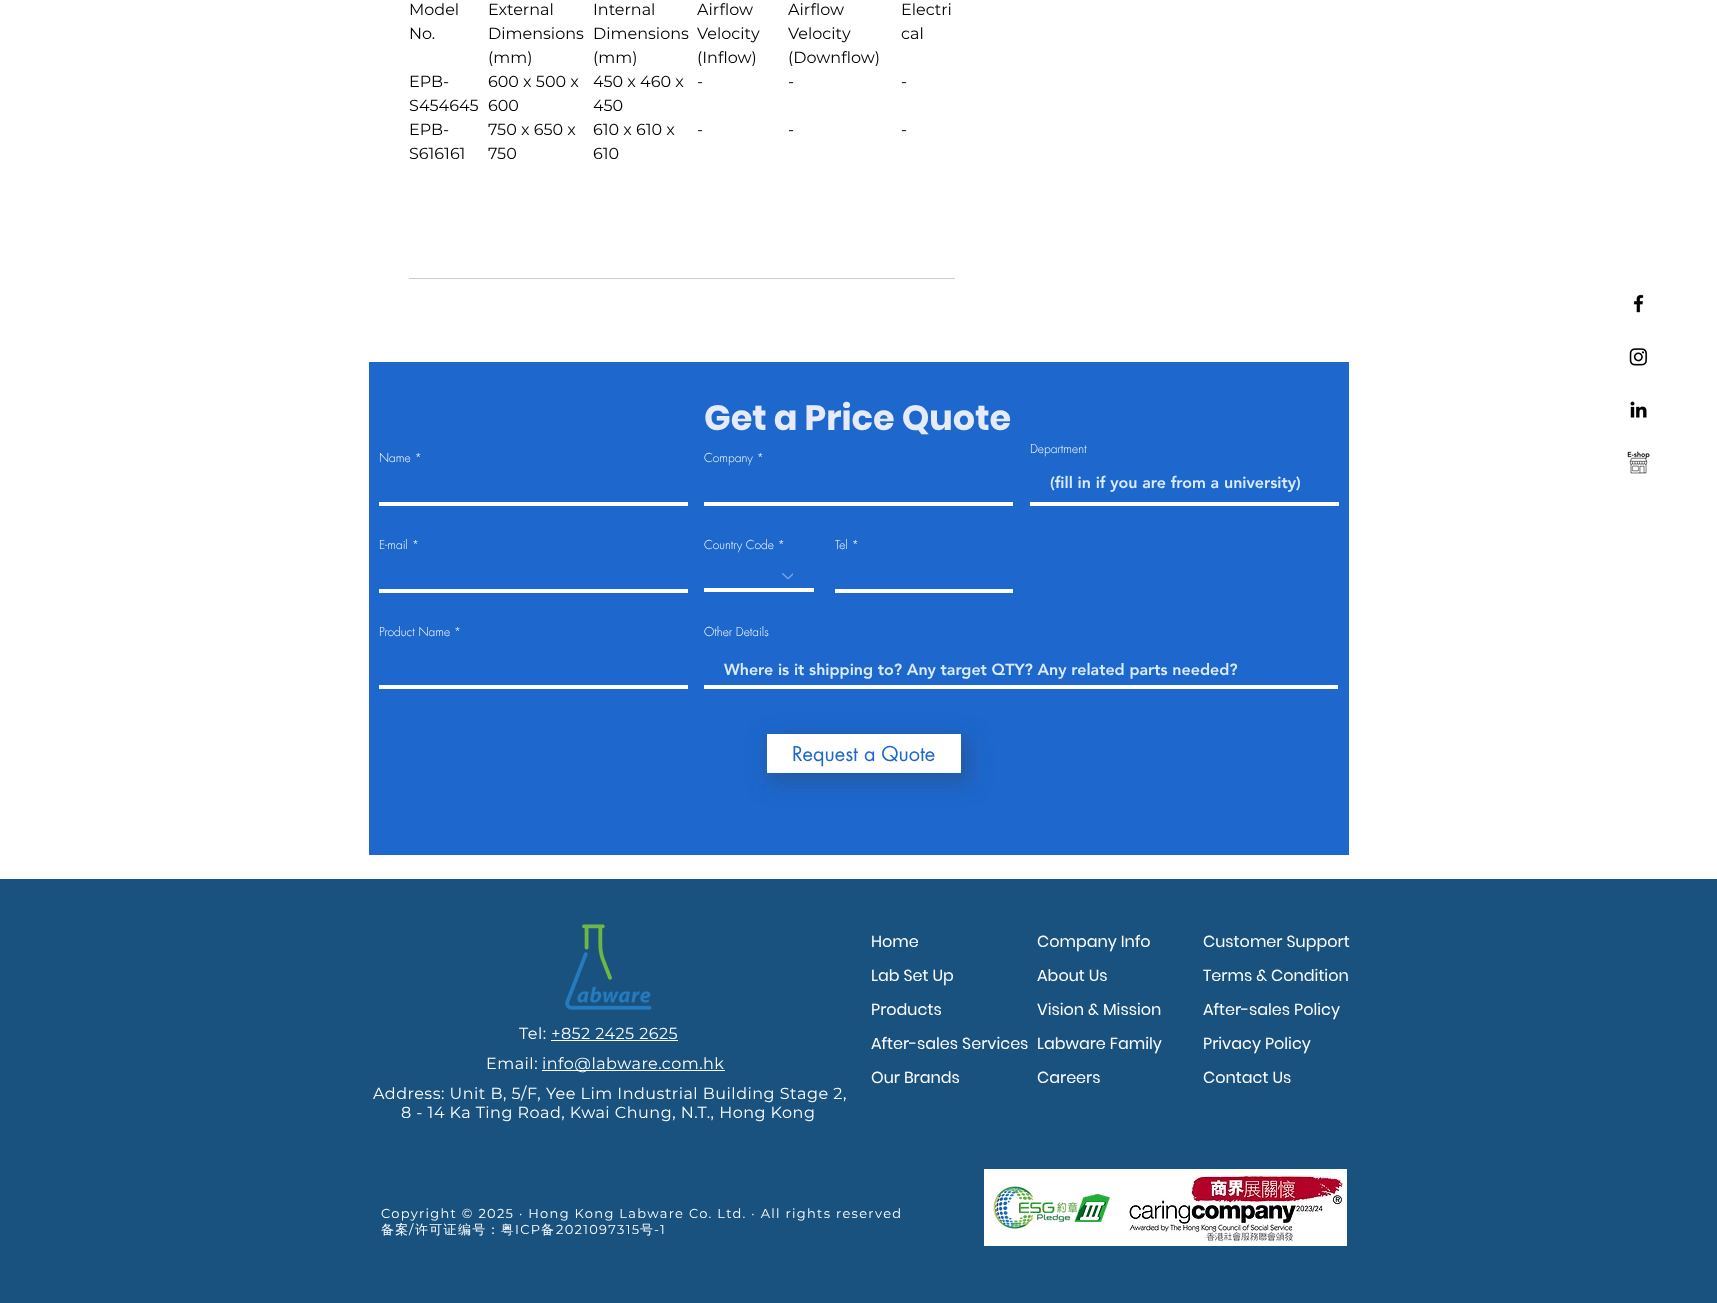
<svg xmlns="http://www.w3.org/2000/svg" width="1717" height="1303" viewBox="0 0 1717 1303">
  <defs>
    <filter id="blur1" x="-50%" y="-200%" width="200%" height="500%"><feGaussianBlur stdDeviation="10"/></filter>
  </defs>
  <rect width="100%" height="100%" fill="#ffffff"/>
  <text x="409" y="15" font-family="Montserrat" font-size="16" fill="#000000">Model</text>
  <text x="409" y="39" font-family="Montserrat" font-size="16" fill="#000000">No.</text>
  <text x="488" y="15" font-family="Montserrat" font-size="16" fill="#000000">External</text>
  <text x="488" y="39" font-family="Montserrat" font-size="16" fill="#000000">Dimensions</text>
  <text x="488" y="63" font-family="Montserrat" font-size="16" fill="#000000">(mm)</text>
  <text x="593" y="15" font-family="Montserrat" font-size="16" fill="#000000">Internal</text>
  <text x="593" y="39" font-family="Montserrat" font-size="16" fill="#000000">Dimensions</text>
  <text x="593" y="63" font-family="Montserrat" font-size="16" fill="#000000">(mm)</text>
  <text x="697" y="15" font-family="Montserrat" font-size="16" fill="#000000">Airflow</text>
  <text x="697" y="39" font-family="Montserrat" font-size="16" fill="#000000">Velocity</text>
  <text x="697" y="63" font-family="Montserrat" font-size="16" fill="#000000">(Inflow)</text>
  <text x="788" y="15" font-family="Montserrat" font-size="16" fill="#000000">Airflow</text>
  <text x="788" y="39" font-family="Montserrat" font-size="16" fill="#000000">Velocity</text>
  <text x="788" y="63" font-family="Montserrat" font-size="16" fill="#000000">(Downflow)</text>
  <text x="901" y="15" font-family="Montserrat" font-size="16" fill="#000000">Electri</text>
  <text x="901" y="39" font-family="Montserrat" font-size="16" fill="#000000">cal</text>
  <text x="409" y="87" font-family="Montserrat" font-size="16" fill="#000000">EPB-</text>
  <text x="409" y="111" font-family="Montserrat" font-size="16" fill="#000000">S454645</text>
  <text x="488" y="87" font-family="Montserrat" font-size="16" fill="#000000">600 x 500 x</text>
  <text x="488" y="111" font-family="Montserrat" font-size="16" fill="#000000">600</text>
  <text x="593" y="87" font-family="Montserrat" font-size="16" fill="#000000">450 x 460 x</text>
  <text x="593" y="111" font-family="Montserrat" font-size="16" fill="#000000">450</text>
  <text x="697" y="87" font-family="Montserrat" font-size="16" fill="#000000">-</text>
  <text x="788" y="87" font-family="Montserrat" font-size="16" fill="#000000">-</text>
  <text x="901" y="87" font-family="Montserrat" font-size="16" fill="#000000">-</text>
  <text x="409" y="135" font-family="Montserrat" font-size="16" fill="#000000">EPB-</text>
  <text x="409" y="159" font-family="Montserrat" font-size="16" fill="#000000">S616161</text>
  <text x="488" y="135" font-family="Montserrat" font-size="16" fill="#000000">750 x 650 x</text>
  <text x="488" y="159" font-family="Montserrat" font-size="16" fill="#000000">750</text>
  <text x="593" y="135" font-family="Montserrat" font-size="16" fill="#000000">610 x 610 x</text>
  <text x="593" y="159" font-family="Montserrat" font-size="16" fill="#000000">610</text>
  <text x="697" y="135" font-family="Montserrat" font-size="16" fill="#000000">-</text>
  <text x="788" y="135" font-family="Montserrat" font-size="16" fill="#000000">-</text>
  <text x="901" y="135" font-family="Montserrat" font-size="16" fill="#000000">-</text>
  <rect x="409" y="278" width="546" height="1" fill="#cccccc"/>
  <rect x="369" y="362" width="980" height="493" fill="#1d67cd"/>
  <text x="704" y="430" font-family="Poppins" font-size="35" font-weight="bold" fill="#e5ebfa">Get a Price Quote</text>
  <text x="379" y="462" font-family="futura" font-size="12" font-weight="300" fill="#ffffff">Name *</text>
  <rect x="379" y="502" width="309" height="4" fill="#ffffff"/>
  <text x="704" y="462" font-family="futura" font-size="12" font-weight="300" fill="#ffffff">Company *</text>
  <rect x="704" y="502" width="309" height="4" fill="#ffffff"/>
  <text x="1030" y="453" font-family="futura" font-size="12" font-weight="300" fill="#ffffff">Department</text>
  <rect x="1030" y="502" width="309" height="4" fill="#ffffff"/>
  <text x="1050" y="488" font-family="'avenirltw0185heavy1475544'" font-size="16" font-weight="900" fill="#dcecff">(fill in if you are from a university)</text>
  <text x="379" y="549" font-family="futura" font-size="12" font-weight="300" fill="#ffffff">E-mail *</text>
  <rect x="379" y="589" width="309" height="4" fill="#ffffff"/>
  <text x="704" y="549" font-family="futura" font-size="12" font-weight="300" fill="#ffffff">Country Code *</text>
  <image x="782" y="573" width="11" height="7" href="img1.png"/>
  <rect x="704" y="588" width="110" height="4" fill="#ffffff"/>
  <text x="835" y="549" font-family="futura" font-size="12" font-weight="300" fill="#ffffff">Tel *</text>
  <rect x="835" y="589" width="178" height="4" fill="#ffffff"/>
  <text x="379" y="636" font-family="futura" font-size="12" font-weight="300" fill="#ffffff">Product Name *</text>
  <rect x="379" y="685" width="309" height="4" fill="#ffffff"/>
  <text x="704" y="636" font-family="futura" font-size="12" font-weight="300" fill="#ffffff">Other Details</text>
  <rect x="704" y="685" width="634" height="4" fill="#ffffff"/>
  <text x="724" y="675" font-family="'avenirltw0185heavy1475544'" font-size="16" font-weight="900" fill="#dcecff">Where is it shipping to? Any target QTY? Any related parts needed?</text>
  <rect x="768" y="737" width="202" height="47" fill="#225aa6" filter="url(#blur1)"/>
  <rect x="767" y="734" width="194" height="39" fill="#ffffff"/>
  <text x="792" y="761" font-family="futura" font-size="20" fill="#1d67cd">Request a Quote</text>
  <image x="1633" y="294" width="11" height="19" href="img2.png"/>
  <image x="1629" y="348" width="19" height="18" href="img3.png"/>
  <image x="1630" y="401" width="17" height="17" href="img4.png"/>
  <image x="1627" y="451" width="23" height="23" href="img5.png"/>
  <rect x="0" y="879" width="1717" height="424" fill="#19527f"/>
  <image x="565" y="924" width="87" height="86" href="img6.png"/>
  <text x="519" y="1039" font-family="Montserrat" font-size="16" letter-spacing="0.48" fill="#ffffff">Tel: +852 2425 2625</text>
  <rect x="551" y="1040" width="127" height="1" fill="#ffffff"/>
  <text x="486" y="1069" font-family="Montserrat" font-size="16" letter-spacing="0.48" fill="#ffffff">Email:</text>
  <rect x="542" y="1070" width="183" height="1" fill="#ffffff"/>
  <text x="542" y="1069" font-family="Montserrat" font-size="16" letter-spacing="0.48" fill="#ffffff">info@labware.com.hk</text>
  <text x="373" y="1099" font-family="Montserrat" font-size="16" letter-spacing="0.48" fill="#ffffff">Address: Unit B, 5/F, Yee Lim Industrial Building Stage 2,</text>
  <text x="401" y="1118" font-family="Montserrat" font-size="16" letter-spacing="0.48" fill="#ffffff">8 - 14 Ka Ting Road, Kwai Chung, N.T., Hong Kong</text>
  <text x="871" y="947" font-family="Poppins" font-size="16" fill="#ffffff">Home</text>
  <text x="871" y="981" font-family="Poppins" font-size="16" fill="#ffffff">Lab Set Up</text>
  <text x="871" y="1015" font-family="Poppins" font-size="16" fill="#ffffff">Products</text>
  <text x="871" y="1049" font-family="Poppins" font-size="16" fill="#ffffff">After-sales Services</text>
  <text x="871" y="1083" font-family="Poppins" font-size="16" fill="#ffffff">Our Brands</text>
  <text x="1037" y="947" font-family="Poppins" font-size="16" fill="#ffffff">Company Info</text>
  <text x="1037" y="981" font-family="Poppins" font-size="16" fill="#ffffff">About Us</text>
  <text x="1037" y="1015" font-family="Poppins" font-size="16" fill="#ffffff">Vision &amp; Mission</text>
  <text x="1037" y="1049" font-family="Poppins" font-size="16" fill="#ffffff">Labware Family</text>
  <text x="1037" y="1083" font-family="Poppins" font-size="16" fill="#ffffff">Careers</text>
  <text x="1203" y="947" font-family="Poppins" font-size="16" fill="#ffffff">Customer Support</text>
  <text x="1203" y="981" font-family="Poppins" font-size="16" fill="#ffffff">Terms &amp; Condition</text>
  <text x="1203" y="1015" font-family="Poppins" font-size="16" fill="#ffffff">After-sales Policy</text>
  <text x="1203" y="1049" font-family="Poppins" font-size="16" fill="#ffffff">Privacy Policy</text>
  <text x="1203" y="1083" font-family="Poppins" font-size="16" fill="#ffffff">Contact Us</text>
  <text x="381" y="1218" font-family="Montserrat" font-size="13" letter-spacing="1.3" fill="#ffffff">Copyright © 2025 · Hong Kong Labware Co. Ltd. · All rights reserved</text>
  <text x="381" y="1234" font-family="WenQuanYi Zen Hei" font-size="13" font-weight="500" letter-spacing="1.3" fill="#ffffff">备案</text>
  <text x="409" y="1234" font-family="Montserrat" font-size="13" letter-spacing="1.3" fill="#ffffff">/</text>
  <text x="415" y="1234" font-family="WenQuanYi Zen Hei" font-size="13" font-weight="500" letter-spacing="1.3" fill="#ffffff">许可证编号：粤</text>
  <text x="515" y="1234" font-family="Montserrat" font-size="13" letter-spacing="1.3" fill="#ffffff">ICP</text>
  <text x="541" y="1234" font-family="WenQuanYi Zen Hei" font-size="13" font-weight="500" letter-spacing="1.3" fill="#ffffff">备</text>
  <text x="556" y="1234" font-family="Montserrat" font-size="13" letter-spacing="1.3" fill="#ffffff">2021097315</text>
  <text x="640" y="1234" font-family="WenQuanYi Zen Hei" font-size="13" font-weight="500" letter-spacing="1.3" fill="#ffffff">号</text>
  <text x="654" y="1234" font-family="Montserrat" font-size="13" letter-spacing="1.3" fill="#ffffff">-1</text>
  <rect x="984" y="1169" width="363" height="77" fill="#ffffff"/>
  <image x="993" y="1186" width="117" height="43" href="img7.png"/>
  <image x="1127" y="1171" width="218" height="72" href="img8.png"/>
</svg>
